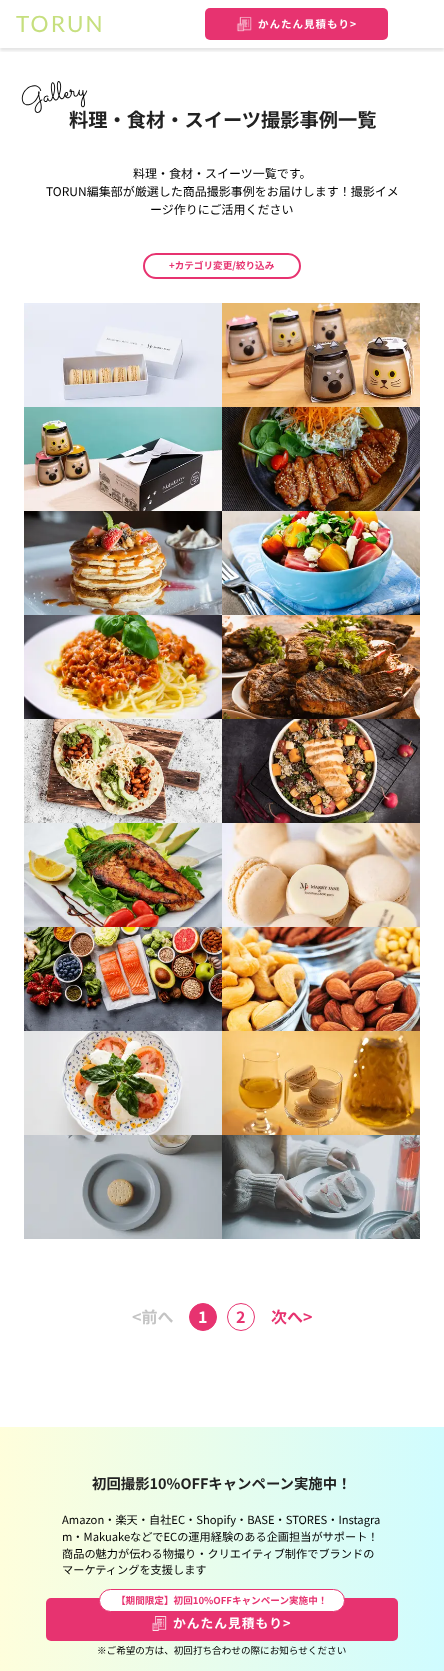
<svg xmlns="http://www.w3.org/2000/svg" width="444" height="1671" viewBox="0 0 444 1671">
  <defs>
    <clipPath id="clip1"><rect x="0" y="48" width="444" height="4"/></clipPath>
    <filter id="blur1" x="-50%" y="-200%" width="200%" height="500%"><feGaussianBlur stdDeviation="1.5"/></filter>
    <linearGradient id="g1" gradientUnits="userSpaceOnUse" x1="-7.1" y1="1560" x2="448" y2="1573"><stop offset="0" stop-color="#fffedb"/><stop offset="1" stop-color="#cffcff"/></linearGradient>
  </defs>
  <rect width="100%" height="100%" fill="#ffffff"/>
  <g clip-path="url(#clip1)">
    <rect x="0" y="3" width="444" height="48" fill="#222222" fill-opacity="0.1" filter="url(#blur1)"/>
  </g>
  <text x="16" y="32" font-family="Lato" font-size="22.5" letter-spacing="2.25" fill="#c6df7e">TORUN</text>
  <rect x="205" y="8" width="183" height="32" rx="5" fill="#e73370"/>
  <image x="236" y="16" width="16" height="16" href="img1.png"/>
  <text x="258" y="28" font-family="Noto Sans JP" font-size="10.5" font-weight="bold" letter-spacing="1" fill="#ffffff">かんたん見積もり&gt;</text>
  <text x="22" y="106" transform="rotate(-10 22 106)" font-family="Sacramento" font-size="25.5" fill="#000000">Gallery</text>
  <text x="69" y="127" font-family="Noto Sans JP" font-size="19.25" font-weight="bold" fill="#222222">料理・食材・スイーツ撮影事例一覧</text>
  <text x="133" y="178" font-family="Noto Sans JP" font-size="12" fill="#000000">料理・食材・スイーツ一覧です。</text>
  <text x="46" y="196" font-family="Noto Sans JP" font-size="12" fill="#000000">TORUN編集部が厳選した商品撮影事例をお届けします！撮影イメ</text>
  <text x="150" y="214" font-family="Noto Sans JP" font-size="12" fill="#000000">ージ作りにご活用ください</text>
  <rect x="144" y="254" width="156" height="24" rx="12" fill="none" stroke="#e73370" stroke-width="2"/>
  <text x="169" y="269" font-family="Noto Sans JP" font-size="9.6" font-weight="bold" fill="#e73370">+カテゴリ変更/絞り込み</text>
  <image x="24" y="303" width="198" height="104" href="img2.png"/>
  <image x="222" y="303" width="198" height="104" href="img3.png"/>
  <image x="24" y="407" width="198" height="104" href="img4.png"/>
  <image x="222" y="407" width="198" height="104" href="img5.png"/>
  <image x="24" y="511" width="198" height="104" href="img6.png"/>
  <image x="222" y="511" width="198" height="104" href="img7.png"/>
  <image x="24" y="615" width="198" height="104" href="img8.png"/>
  <image x="222" y="615" width="198" height="104" href="img9.png"/>
  <image x="24" y="719" width="198" height="104" href="img10.png"/>
  <image x="222" y="719" width="198" height="104" href="img11.png"/>
  <image x="24" y="823" width="198" height="104" href="img12.png"/>
  <image x="222" y="823" width="198" height="104" href="img13.png"/>
  <image x="24" y="927" width="198" height="104" href="img14.png"/>
  <image x="222" y="927" width="198" height="104" href="img15.png"/>
  <image x="24" y="1031" width="198" height="104" href="img16.png"/>
  <image x="222" y="1031" width="198" height="104" href="img17.png"/>
  <image x="24" y="1135" width="198" height="104" href="img18.png"/>
  <image x="222" y="1135" width="198" height="104" href="img19.png"/>
  <text x="132" y="1323" font-family="Noto Sans JP" font-size="16" font-weight="bold" fill="#c4c4c4">&lt;前へ</text>
  <circle cx="203" cy="1317" r="13.5" fill="#e73370" stroke="#e73370"/>
  <text x="198" y="1323" font-family="Noto Sans JP" font-size="16" font-weight="bold" fill="#ffffff">1</text>
  <circle cx="241" cy="1317" r="13.5" fill="none" stroke="#e73370"/>
  <text x="236" y="1323" font-family="Noto Sans JP" font-size="16" font-weight="bold" fill="#e73370">2</text>
  <text x="271" y="1323" font-family="Noto Sans JP" font-size="16" font-weight="bold" fill="#e73370">次へ&gt;</text>
  <rect x="0" y="1427" width="444" height="244" fill="url(#g1)"/>
  <text x="92" y="1489" font-family="Noto Sans JP" font-size="14.4" font-weight="bold" fill="#222222">初回撮影10%OFFキャンペーン実施中！</text>
  <text x="62" y="1524" font-family="Noto Sans JP" font-size="11.2" fill="#000000">Amazon・楽天・自社EC・Shopify・BASE・STORES・Instagra</text>
  <text x="62" y="1541" font-family="Noto Sans JP" font-size="11.2" fill="#000000">m・MakuakeなどでECの運用経験のある企画担当がサポート！</text>
  <text x="62" y="1558" font-family="Noto Sans JP" font-size="11.2" fill="#000000">商品の魅力が伝わる物撮り・クリエイティブ制作でブランドの</text>
  <text x="62" y="1574" font-family="Noto Sans JP" font-size="11.2" fill="#000000">マーケティングを支援します</text>
  <rect x="46" y="1598" width="352" height="43" rx="5" fill="#e73370"/>
  <rect x="99.5" y="1589.5" width="245" height="22" rx="11" fill="#ffffff" stroke="#e73370"/>
  <text x="116" y="1604" font-family="Noto Sans JP" font-size="9.6" font-weight="bold" fill="#e73370">【期間限定】初回10%OFFキャンペーン実施中！</text>
  <image x="152" y="1616" width="15" height="15" href="img20.png"/>
  <text x="173" y="1628" font-family="Noto Sans JP" font-size="12.75" font-weight="bold" letter-spacing="1" fill="#ffffff">かんたん見積もり&gt;</text>
  <text x="97" y="1654" font-family="Noto Sans JP" font-size="9.6" fill="#000000">※ご希望の方は、初回打ち合わせの際にお知らせください</text>
</svg>
